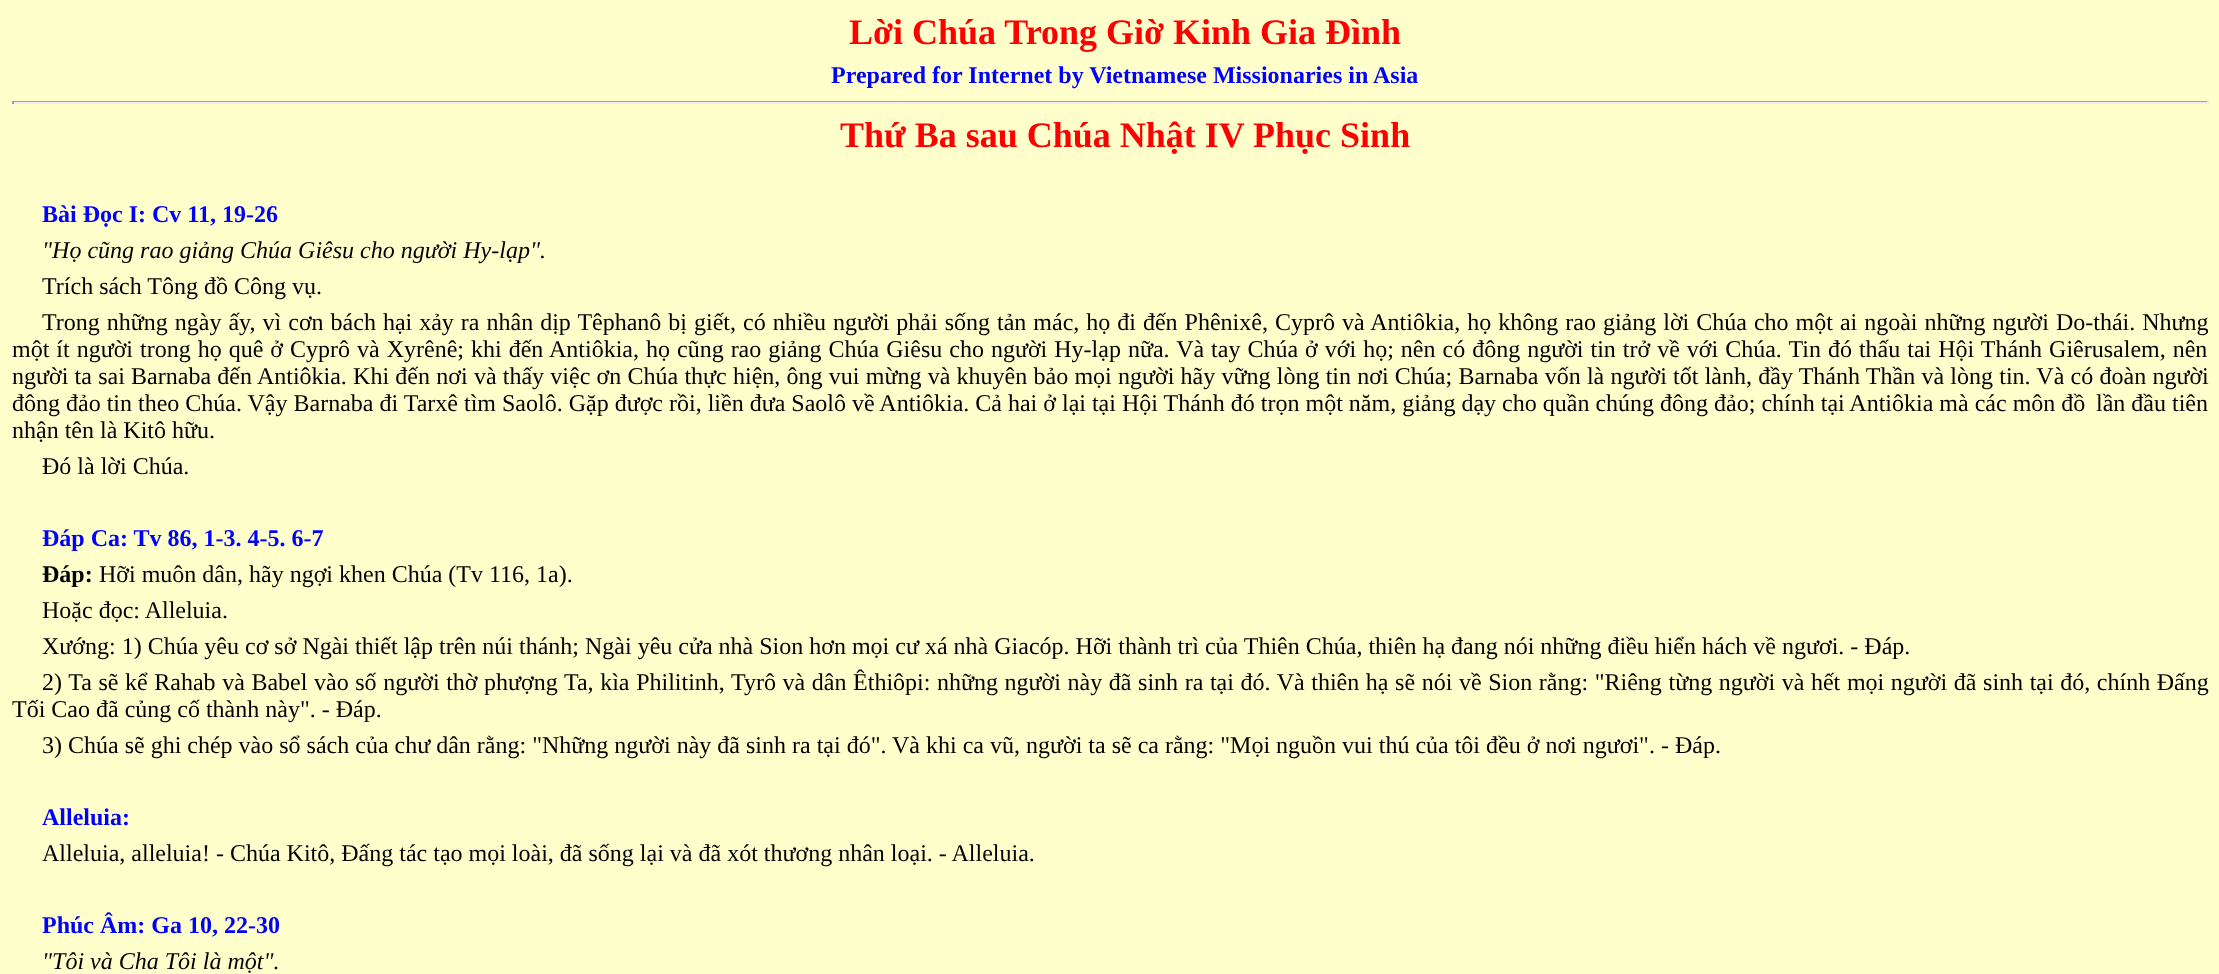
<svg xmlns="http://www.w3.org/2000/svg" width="2219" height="974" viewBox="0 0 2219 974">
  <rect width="100%" height="100%" fill="#ffffcc"/>
  <text x="849" y="44" font-family="Liberation Serif" font-size="36" font-weight="bold" fill="#ff0000">Lời Chúa Trong Giờ Kinh Gia Ðình</text>
  <text x="831" y="83" font-family="Liberation Serif" font-size="24" font-weight="bold" fill="#0000ff">Prepared for Internet by Vietnamese Missionaries in Asia</text>
  <rect x="12" y="101" width="2196" height="1" fill="#9f9f9f"/>
  <rect x="2207" y="101" width="2" height="3" fill="#eeeeee"/>
  <rect x="12" y="102" width="2196" height="2" fill="#eeeeee"/>
  <rect x="12" y="101" width="2" height="3" fill="#9f9f9f"/>
  <text x="840" y="147" font-family="Liberation Serif" font-size="36" font-weight="bold" fill="#ff0000">Thứ Ba sau Chúa Nhật IV Phục Sinh</text>
  <text x="42" y="222" font-family="Liberation Serif" font-size="24" font-weight="bold" fill="#0000ff">Bài Ðọc I: Cv 11, 19-26</text>
  <text x="42" y="258" font-family="Liberation Serif" font-size="24" font-style="italic" fill="#000000">"Họ cũng rao giảng Chúa Giêsu cho người Hy-lạp".</text>
  <text x="42" y="294" font-family="Liberation Serif" font-size="24" fill="#000000">Trích sách Tông đồ Công vụ.</text>
  <text x="42" y="330" word-spacing="1" font-family="Liberation Serif" font-size="24" fill="#000000">Trong những ngày ấy, vì cơn bách hại xảy ra nhân dịp Têphanô bị giết, có nhiều người phải sống tản mác, họ đi đến Phênixê, Cyprô và Antiôkia, họ không rao giảng lời Chúa cho một ai ngoài những người Do-thái. Nhưng</text>
  <text x="12" y="357" word-spacing="1" font-family="Liberation Serif" font-size="24" fill="#000000">một ít người trong họ quê ở Cyprô và Xyrênê; khi đến Antiôkia, họ cũng rao giảng Chúa Giêsu cho người Hy-lạp nữa. Và tay Chúa ở với họ; nên có đông người tin trở về với Chúa. Tin đó thấu tai Hội Thánh Giêrusalem, nên</text>
  <text x="12" y="384" word-spacing="0.25" font-family="Liberation Serif" font-size="24" fill="#000000">người ta sai Barnaba đến Antiôkia. Khi đến nơi và thấy việc ơn Chúa thực hiện, ông vui mừng và khuyên bảo mọi người hãy vững lòng tin nơi Chúa; Barnaba vốn là người tốt lành, đầy Thánh Thần và lòng tin. Và có đoàn người</text>
  <text x="12" y="411" font-family="Liberation Serif" font-size="24" fill="#000000">đông đảo tin theo Chúa. Vậy Barnaba đi Tarxê tìm Saolô. Gặp được rồi, liền đưa Saolô về Antiôkia. Cả hai ở lại tại Hội Thánh đó trọn một năm, giảng dạy cho quần chúng đông đảo; chính tại Antiôkia mà các môn đồ</text>
  <text x="2096" y="411" font-family="Liberation Serif" font-size="24" fill="#000000">lần đầu tiên</text>
  <text x="12" y="438" font-family="Liberation Serif" font-size="24" fill="#000000">nhận tên là Kitô hữu.</text>
  <text x="42" y="474" font-family="Liberation Serif" font-size="24" fill="#000000">Ðó là lời Chúa.</text>
  <text x="42" y="546" font-family="Liberation Serif" font-size="24" font-weight="bold" fill="#0000ff">Ðáp Ca: Tv 86, 1-3. 4-5. 6-7</text>
  <text x="42" y="582" font-family="Liberation Serif" font-size="24" font-weight="bold" fill="#000000">Ðáp:</text>
  <text x="99" y="582" font-family="Liberation Serif" font-size="24" fill="#000000">Hỡi muôn dân, hãy ngợi khen Chúa (Tv 116, 1a).</text>
  <text x="42" y="618" font-family="Liberation Serif" font-size="24" fill="#000000">Hoặc đọc: Alleluia.</text>
  <text x="42" y="654" font-family="Liberation Serif" font-size="24" fill="#000000">Xướng: 1) Chúa yêu cơ sở Ngài thiết lập trên núi thánh; Ngài yêu cửa nhà Sion hơn mọi cư xá nhà Giacóp. Hỡi thành trì của Thiên Chúa, thiên hạ đang nói những điều hiển hách về ngươi. - Ðáp.</text>
  <text x="42" y="690" word-spacing="0.6" font-family="Liberation Serif" font-size="24" fill="#000000">2) Ta sẽ kể Rahab và Babel vào số người thờ phượng Ta, kìa Philitinh, Tyrô và dân Êthiôpi: những người này đã sinh ra tại đó. Và thiên hạ sẽ nói về Sion rằng: "Riêng từng người và hết mọi người đã sinh tại đó, chính Ðấng</text>
  <text x="12" y="717" font-family="Liberation Serif" font-size="24" fill="#000000">Tối Cao đã củng cố thành này". - Ðáp.</text>
  <text x="42" y="753" font-family="Liberation Serif" font-size="24" fill="#000000">3) Chúa sẽ ghi chép vào sổ sách của chư dân rằng: "Những người này đã sinh ra tại đó". Và khi ca vũ, người ta sẽ ca rằng: "Mọi nguồn vui thú của tôi đều ở nơi ngươi". - Ðáp.</text>
  <text x="42" y="825" font-family="Liberation Serif" font-size="24" font-weight="bold" fill="#0000ff">Alleluia:</text>
  <text x="42" y="861" font-family="Liberation Serif" font-size="24" fill="#000000">Alleluia, alleluia! - Chúa Kitô, Ðấng tác tạo mọi loài, đã sống lại và đã xót thương nhân loại. - Alleluia.</text>
  <text x="42" y="933" font-family="Liberation Serif" font-size="24" font-weight="bold" fill="#0000ff">Phúc Âm: Ga 10, 22-30</text>
  <text x="42" y="969" font-family="Liberation Serif" font-size="24" font-style="italic" fill="#000000">"Tôi và Cha Tôi là một".</text>
</svg>
